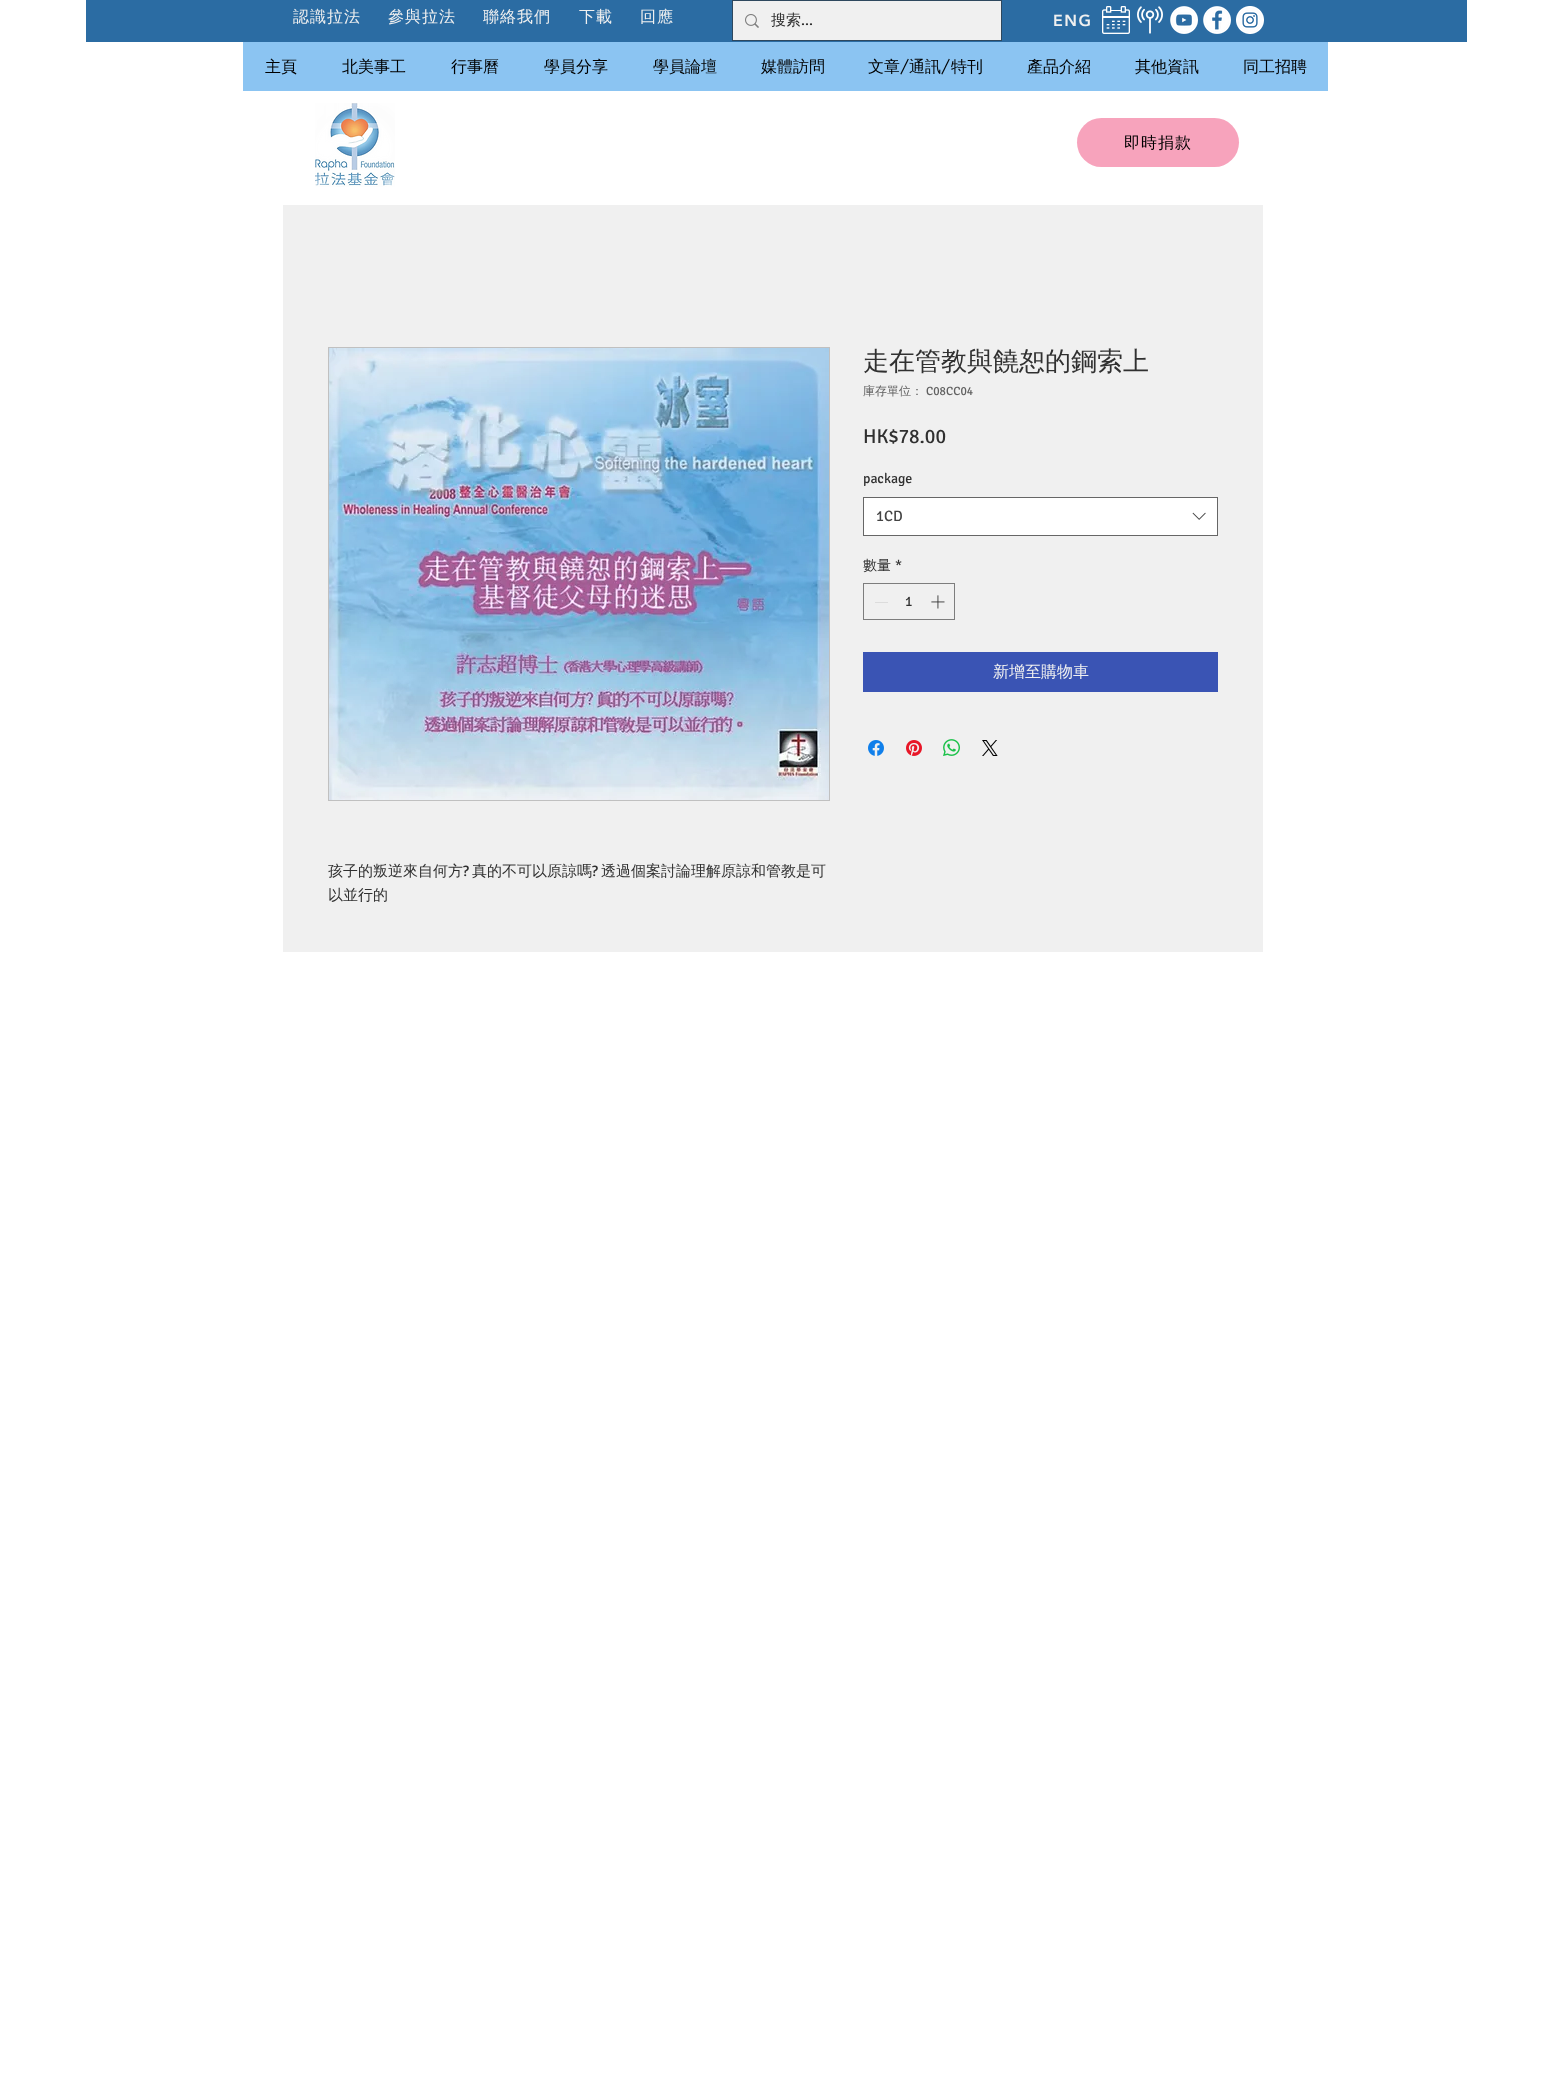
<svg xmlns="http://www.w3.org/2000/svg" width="1546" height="2096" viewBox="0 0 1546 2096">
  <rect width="100%" height="100%" fill="#ffffff"/>
  <rect x="86" y="0" width="1381" height="42" fill="#2b6ca3"/>
  <text x="293" y="22" font-family="WenQuanYi Zen Hei" font-size="16" font-weight="500" letter-spacing="1" fill="#f0f0f0">認識拉法</text>
  <text x="388" y="22" font-family="WenQuanYi Zen Hei" font-size="16" font-weight="500" letter-spacing="1" fill="#f0f0f0">參與拉法</text>
  <text x="483" y="22" font-family="WenQuanYi Zen Hei" font-size="16" font-weight="500" letter-spacing="1" fill="#f0f0f0">聯絡我們</text>
  <text x="579" y="22" font-family="WenQuanYi Zen Hei" font-size="16" font-weight="500" letter-spacing="1" fill="#f0f0f0">下載</text>
  <text x="640" y="22" font-family="WenQuanYi Zen Hei" font-size="16" font-weight="500" letter-spacing="1" fill="#f0f0f0">回應</text>
  <rect x="732.5" y="0.5" width="269" height="40" fill="none" stroke="#2e485e"/>
  <rect x="733" y="1" width="268" height="39" fill="#f0f0f0"/>
  <image x="745" y="14" width="14" height="14" href="img1.png"/>
  <text x="771" y="25" font-family="WenQuanYi Zen Hei" font-size="15" font-weight="500" fill="#303030">搜索</text>
  <text x="801" y="25" font-family="Signika" font-size="15" fill="#303030">...</text>
  <text x="1053" y="26" font-family="'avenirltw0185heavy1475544'" font-size="16" font-weight="900" letter-spacing="1.5" fill="#f0f0f0">ENG</text>
  <image x="1102" y="6" width="28" height="28" href="img2.png"/>
  <image x="1137" y="6" width="26" height="28" href="img3.png"/>
  <image x="1170" y="6" width="28" height="28" href="img4.png"/>
  <image x="1203" y="6" width="28" height="28" href="img5.png"/>
  <image x="1236" y="6" width="28" height="28" href="img6.png"/>
  <rect x="243" y="42" width="1085" height="49" fill="#8bc4f2"/>
  <text x="265" y="72" font-family="WenQuanYi Zen Hei" font-size="16" font-weight="500" fill="#000000">主頁</text>
  <text x="342" y="72" font-family="WenQuanYi Zen Hei" font-size="16" font-weight="500" fill="#000000">北美事工</text>
  <text x="451" y="72" font-family="WenQuanYi Zen Hei" font-size="16" font-weight="500" fill="#000000">行事曆</text>
  <text x="544" y="72" font-family="WenQuanYi Zen Hei" font-size="16" font-weight="500" fill="#000000">學員分享</text>
  <text x="653" y="72" font-family="WenQuanYi Zen Hei" font-size="16" font-weight="500" fill="#000000">學員論壇</text>
  <text x="761" y="72" font-family="WenQuanYi Zen Hei" font-size="16" font-weight="500" fill="#000000">媒體訪問</text>
  <text x="868" y="72" font-family="WenQuanYi Zen Hei" font-size="16" font-weight="500" fill="#000000">文章</text>
  <text x="900" y="72" font-family="futura" font-size="16" fill="#000000">/</text>
  <text x="909" y="72" font-family="WenQuanYi Zen Hei" font-size="16" font-weight="500" fill="#000000">通訊</text>
  <text x="941" y="72" font-family="futura" font-size="16" fill="#000000">/</text>
  <text x="951" y="72" font-family="WenQuanYi Zen Hei" font-size="16" font-weight="500" fill="#000000">特刊</text>
  <text x="1027" y="72" font-family="WenQuanYi Zen Hei" font-size="16" font-weight="500" fill="#000000">產品介紹</text>
  <text x="1135" y="72" font-family="WenQuanYi Zen Hei" font-size="16" font-weight="500" fill="#000000">其他資訊</text>
  <text x="1243" y="72" font-family="WenQuanYi Zen Hei" font-size="16" font-weight="500" fill="#000000">同工招聘</text>
  <image x="315" y="103" width="80" height="84" href="img7.png"/>
  <rect x="1077" y="118" width="162" height="49" rx="24.5" fill="#f7a3bc"/>
  <text x="1124" y="148" font-family="WenQuanYi Zen Hei" font-size="16" font-weight="500" letter-spacing="1" fill="#000000">即時捐款</text>
  <rect x="283" y="205" width="980" height="747" fill="#f0f0f0"/>
  <text x="863" y="370" font-family="WenQuanYi Zen Hei" font-size="26" font-weight="500" fill="#303030">走在管教與饒恕的鋼索上</text>
  <text x="863" y="395" font-family="WenQuanYi Zen Hei" font-size="12" font-weight="500" fill="#606060">庫存單位：</text>
  <text x="926" y="395" font-family="Signika" font-size="12" fill="#606060">C08CC04</text>
  <text x="863" y="443" font-family="Signika" font-size="20" fill="#303030">HK$78.00</text>
  <text x="863" y="483" font-family="Signika" font-size="14" fill="#303030">package</text>
  <rect x="863.5" y="497.5" width="354" height="38" fill="#ffffff" stroke="#666666"/>
  <text x="876" y="521" font-family="Signika" font-size="15" fill="#444444">1CD</text>
  <image x="1192" y="512" width="14" height="8" href="img8.png"/>
  <text x="863" y="570" font-family="WenQuanYi Zen Hei" font-size="14" font-weight="500" fill="#303030">數量</text>
  <text x="895" y="570" font-family="Signika" font-size="14" fill="#303030">*</text>
  <rect x="863.5" y="583.5" width="91" height="36" fill="none" stroke="#7d7d7d"/>
  <rect x="875" y="602" width="13" height="1" fill="#dcdcdc"/>
  <text x="905" y="606" font-family="Signika" font-size="14" fill="#303030">1</text>
  <image x="931" y="595" width="14" height="14" href="img9.png"/>
  <rect x="863" y="652" width="355" height="40" fill="#3a54b4"/>
  <text x="993" y="677" font-family="WenQuanYi Zen Hei" font-size="16" font-weight="500" fill="#f0f0f0">新增至購物車</text>
  <image x="868" y="740" width="16" height="16" href="img10.png"/>
  <image x="906" y="740" width="16" height="16" href="img11.png"/>
  <image x="943" y="739" width="17" height="17" href="img12.png"/>
  <image x="982" y="740" width="16" height="16" href="img13.png"/>
  <rect x="328.5" y="347.5" width="501" height="453" fill="none" stroke="#c0c0c0"/>
  <image x="329" y="348" width="500" height="452" href="img14.png"/>
  <text x="328" y="876" font-family="WenQuanYi Zen Hei" font-size="15" font-weight="500" fill="#303030">孩子的叛逆來自何方</text>
  <text x="463" y="876" font-family="Signika" font-size="15" fill="#303030">?</text>
  <text x="472" y="876" font-family="WenQuanYi Zen Hei" font-size="15" font-weight="500" fill="#303030">真的不可以原諒嗎</text>
  <text x="592" y="876" font-family="Signika" font-size="15" fill="#303030">?</text>
  <text x="601" y="876" font-family="WenQuanYi Zen Hei" font-size="15" font-weight="500" fill="#303030">透過個案討論理解原諒和管教是可</text>
  <text x="328" y="900" font-family="WenQuanYi Zen Hei" font-size="15" font-weight="500" fill="#303030">以並行的</text>
</svg>
